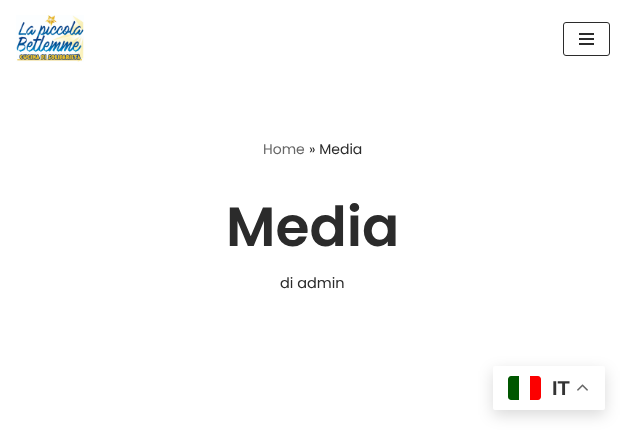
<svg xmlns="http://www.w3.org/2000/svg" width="625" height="438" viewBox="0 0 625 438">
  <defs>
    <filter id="blur1" x="-50%" y="-200%" width="200%" height="500%"><feGaussianBlur stdDeviation="7.5"/></filter>
  </defs>
  <rect width="100%" height="100%" fill="#ffffff"/>
  <image x="16" y="15" width="68" height="47" href="img1.png"/>
  <rect x="563.5" y="22.5" width="46" height="33" rx="2.5" fill="none" stroke="#2b2b2b"/>
  <rect x="579" y="33" width="15" height="2" fill="#2b2b2b"/>
  <rect x="579" y="38" width="15" height="2" fill="#2b2b2b"/>
  <rect x="579" y="43" width="15" height="2" fill="#2b2b2b"/>
  <text x="263" y="154" font-family="Poppins" font-size="14" fill="#676767">Home</text>
  <text x="309" y="154" font-family="Poppins" font-size="14" fill="#2b2b2b">» Media</text>
  <text x="226" y="246" font-family="Poppins" font-size="55" font-weight="600" fill="#2b2b2b">Media</text>
  <text x="280" y="288" font-family="Poppins" font-size="14.5" fill="#2b2b2b">di admin</text>
  <rect x="493" y="371" width="112" height="44" rx="2" fill="#000000" fill-opacity="0.15" filter="url(#blur1)"/>
  <rect x="493" y="366" width="112" height="44" rx="2" fill="#ffffff"/>
  <path d="M511 376H519V400H511C509.5 400 508 398.5 508 397V379C508 377.5 509.5 376 511 376Z" fill="#005700"/>
  <path d="M530 376H538C539.5 376 541 377.5 541 379V397C541 398.5 539.5 400 538 400H530Z" fill="#fc0000"/>
  <text x="552" y="395" font-family="Liberation Sans" font-size="20" font-weight="bold" fill="#333333">IT</text>
  <image x="577" y="384" width="11" height="7" href="img2.png"/>
</svg>
